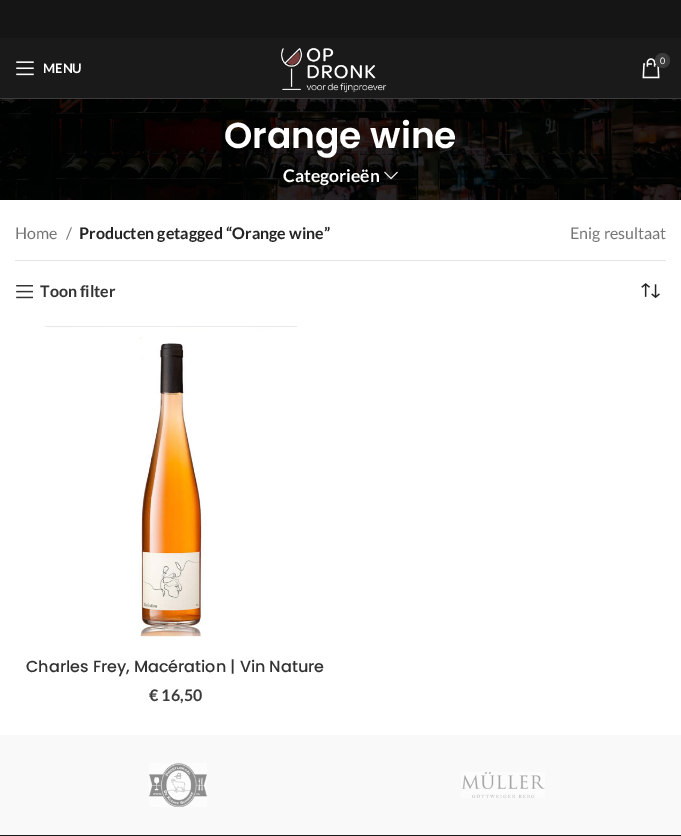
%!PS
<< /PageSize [681 836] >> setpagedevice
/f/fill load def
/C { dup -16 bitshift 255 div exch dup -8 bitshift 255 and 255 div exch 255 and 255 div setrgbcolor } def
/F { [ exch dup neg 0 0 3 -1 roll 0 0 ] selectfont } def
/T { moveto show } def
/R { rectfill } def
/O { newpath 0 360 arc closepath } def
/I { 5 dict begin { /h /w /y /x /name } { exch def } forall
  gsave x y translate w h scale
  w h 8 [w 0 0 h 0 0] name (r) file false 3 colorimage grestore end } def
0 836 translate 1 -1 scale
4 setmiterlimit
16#FFFFFF C
0 0 681 836 R
16#151515 C
0 0 681 38 R
16#1A1A1A C
0 38 681 60 R
16#3C3C3C C
0 98 681 1 R
(1.rgb) 281 47 106 46 I
(2.rgb) 642 58 18 21 I
16#3A3A3A C
662.5 60.5 7.5 O f
/Lato-Regular 9 F
16#FFFFFF C
(0) 660 64 T
(3.rgb) 16 61 18 15 I
/Lato-Bold 13 F
(MENU) 43 73 T
(4.rgb) 0 99 681 101 I
/Poppins-SemiBold 36 F
(Orange wine) 224 148 T
/Lato-Bold 17.5 F
(Categorieën) 283 182 T
(5.rgb) 384 171 14 9 I
16#E4E4E4 C
15 260 651 1 R
/Lato-Regular 16 F
16#767676 C
(Home) 15 239 T
(/) 66 239 T
/Lato-Bold 16 F
16#242424 C
(Producten getagged “Orange wine”) 79 239 T
/Lato-Regular 16 F
16#767676 C
(Enig resultaat) 570 239 T
(6.rgb) 16 285 17 14 I
/Lato-Bold 16 F
16#333333 C
(Toon filter) 40 297 T
(7.rgb) 641 283 19 16 I
(8.rgb) 45 326 252 312 I
/Poppins-Medium 16 F
(Charles Frey, Macération | Vin Nature) 26 672 T
/Lato-Bold 16 F
16#3A3A3A C
(€ 16,50) 149 701 T
16#F9F9F9 C
0 735 681 100 R
(9.rgb) 149 763 58 44 I
(10.rgb) 461 772 84 26 I
16#1A1A1A C
0 835 681 1 R
showpage
